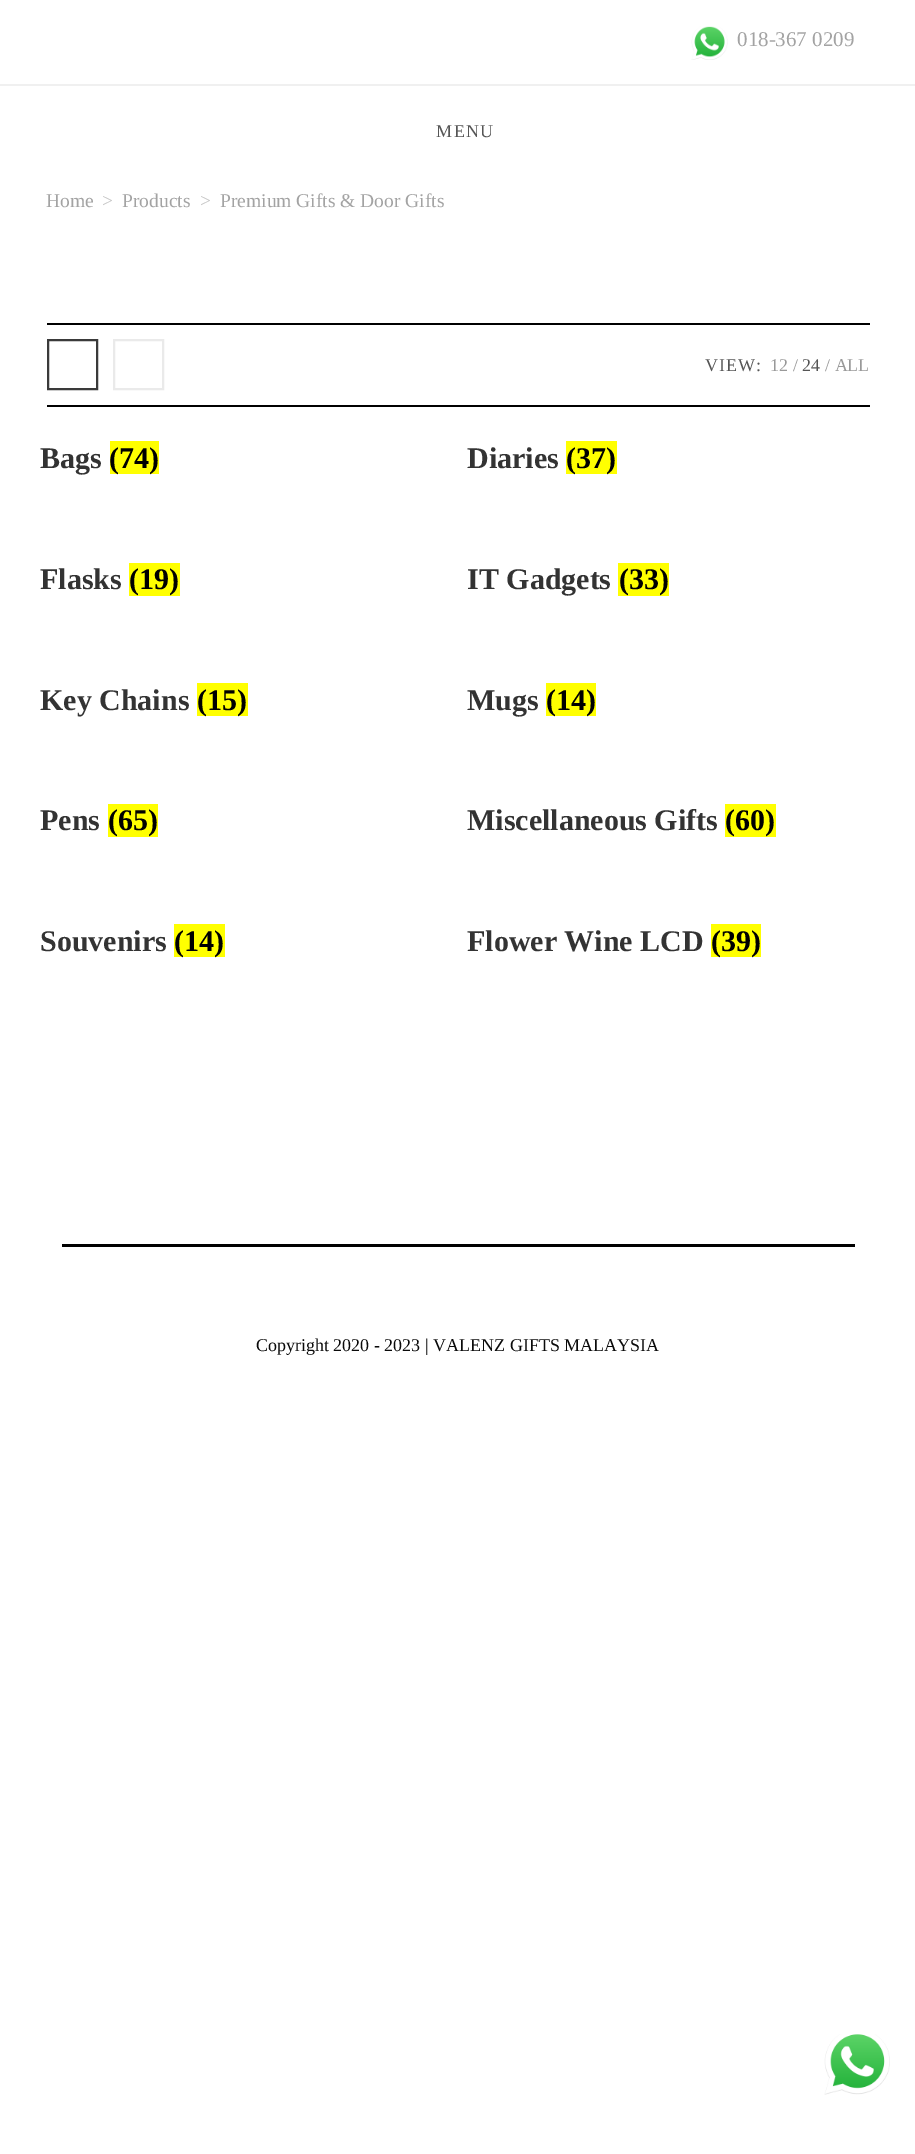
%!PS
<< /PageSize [915 2154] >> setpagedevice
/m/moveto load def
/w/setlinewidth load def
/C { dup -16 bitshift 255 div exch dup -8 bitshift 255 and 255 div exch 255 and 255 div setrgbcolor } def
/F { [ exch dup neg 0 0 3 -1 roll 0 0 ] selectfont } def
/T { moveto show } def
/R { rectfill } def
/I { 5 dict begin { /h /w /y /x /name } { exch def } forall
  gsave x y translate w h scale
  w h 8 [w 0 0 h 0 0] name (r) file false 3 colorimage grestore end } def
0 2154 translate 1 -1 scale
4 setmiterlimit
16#FFFFFF C
0 0 915 2154 R
16#F0F0F0 C
0 84 915 2 R
(1.rgb) 691 26 37 34 I
/LiberationSerif-Regular 21 F
16#A3A3A3 C
(018-367 0209) 737 46 T
/LiberationSerif-Regular 18 F
16#555555 C
436 137 m 1.5 0 (MENU) ashow
/LiberationSerif-Regular 19.5 F
16#A3A3A3 C
(Home) 46 207 T
16#C6C6C6 C
(>) 102 207 T
16#A3A3A3 C
(Products) 122 207 T
16#C6C6C6 C
(>) 200 207 T
16#A3A3A3 C
(Premium Gifts & Door Gifts) 220 207 T
16#000000 C
47 323 823 2 R
47 405 823 2 R
16#3A3A3A C
2 w
48 340 49 49 rectstroke
16#EAEAEA C
114 340 49 49 rectstroke
/LiberationSerif-Regular 18 F
16#555555 C
705 371 m 1 0 (VIEW:) ashow
16#999999 C
(12 /) 770 371 T
16#555555 C
(24) 802 371 T
16#999999 C
(/ ALL) 825 371 T
/LiberationSerif-Bold 30 F
16#333333 C
(Bags) 40 468 T
16#FFFF00 C
110 441 49 33 R
16#000000 C
(\(74\)) 109 468 T
16#333333 C
(Diaries) 467 468 T
16#FFFF00 C
566 441 51 33 R
16#000000 C
(\(37\)) 566 468 T
16#333333 C
(Flasks) 40 589 T
16#FFFF00 C
129 563 51 33 R
16#000000 C
(\(19\)) 129 589 T
16#333333 C
(IT Gadgets) 467 589 T
16#FFFF00 C
618 563 51 33 R
16#000000 C
(\(33\)) 619 589 T
16#333333 C
(Key Chains) 40 710 T
16#FFFF00 C
197 683 51 33 R
16#000000 C
(\(15\)) 197 710 T
16#333333 C
(Mugs) 467 710 T
16#FFFF00 C
546 683 50 33 R
16#000000 C
(\(14\)) 546 710 T
16#333333 C
(Pens) 40 830 T
16#FFFF00 C
108 804 50 33 R
16#000000 C
(\(65\)) 108 830 T
16#333333 C
(Miscellaneous Gifts) 467 830 T
16#FFFF00 C
725 804 51 33 R
16#000000 C
(\(60\)) 725 830 T
16#333333 C
(Souvenirs) 40 951 T
16#FFFF00 C
174 924 51 33 R
16#000000 C
(\(14\)) 174 951 T
16#333333 C
(Flower Wine LCD) 467 951 T
16#FFFF00 C
711 924 50 33 R
16#000000 C
(\(39\)) 711 951 T
62 1244 793 3 R
/LiberationSerif-Regular 18 F
16#0A0A0A C
(Copyright 2020 - 2023 | VALENZ GIFTS MALAYSIA) 256 1351 T
(2.rgb) 824 2034 66 61 I
showpage
